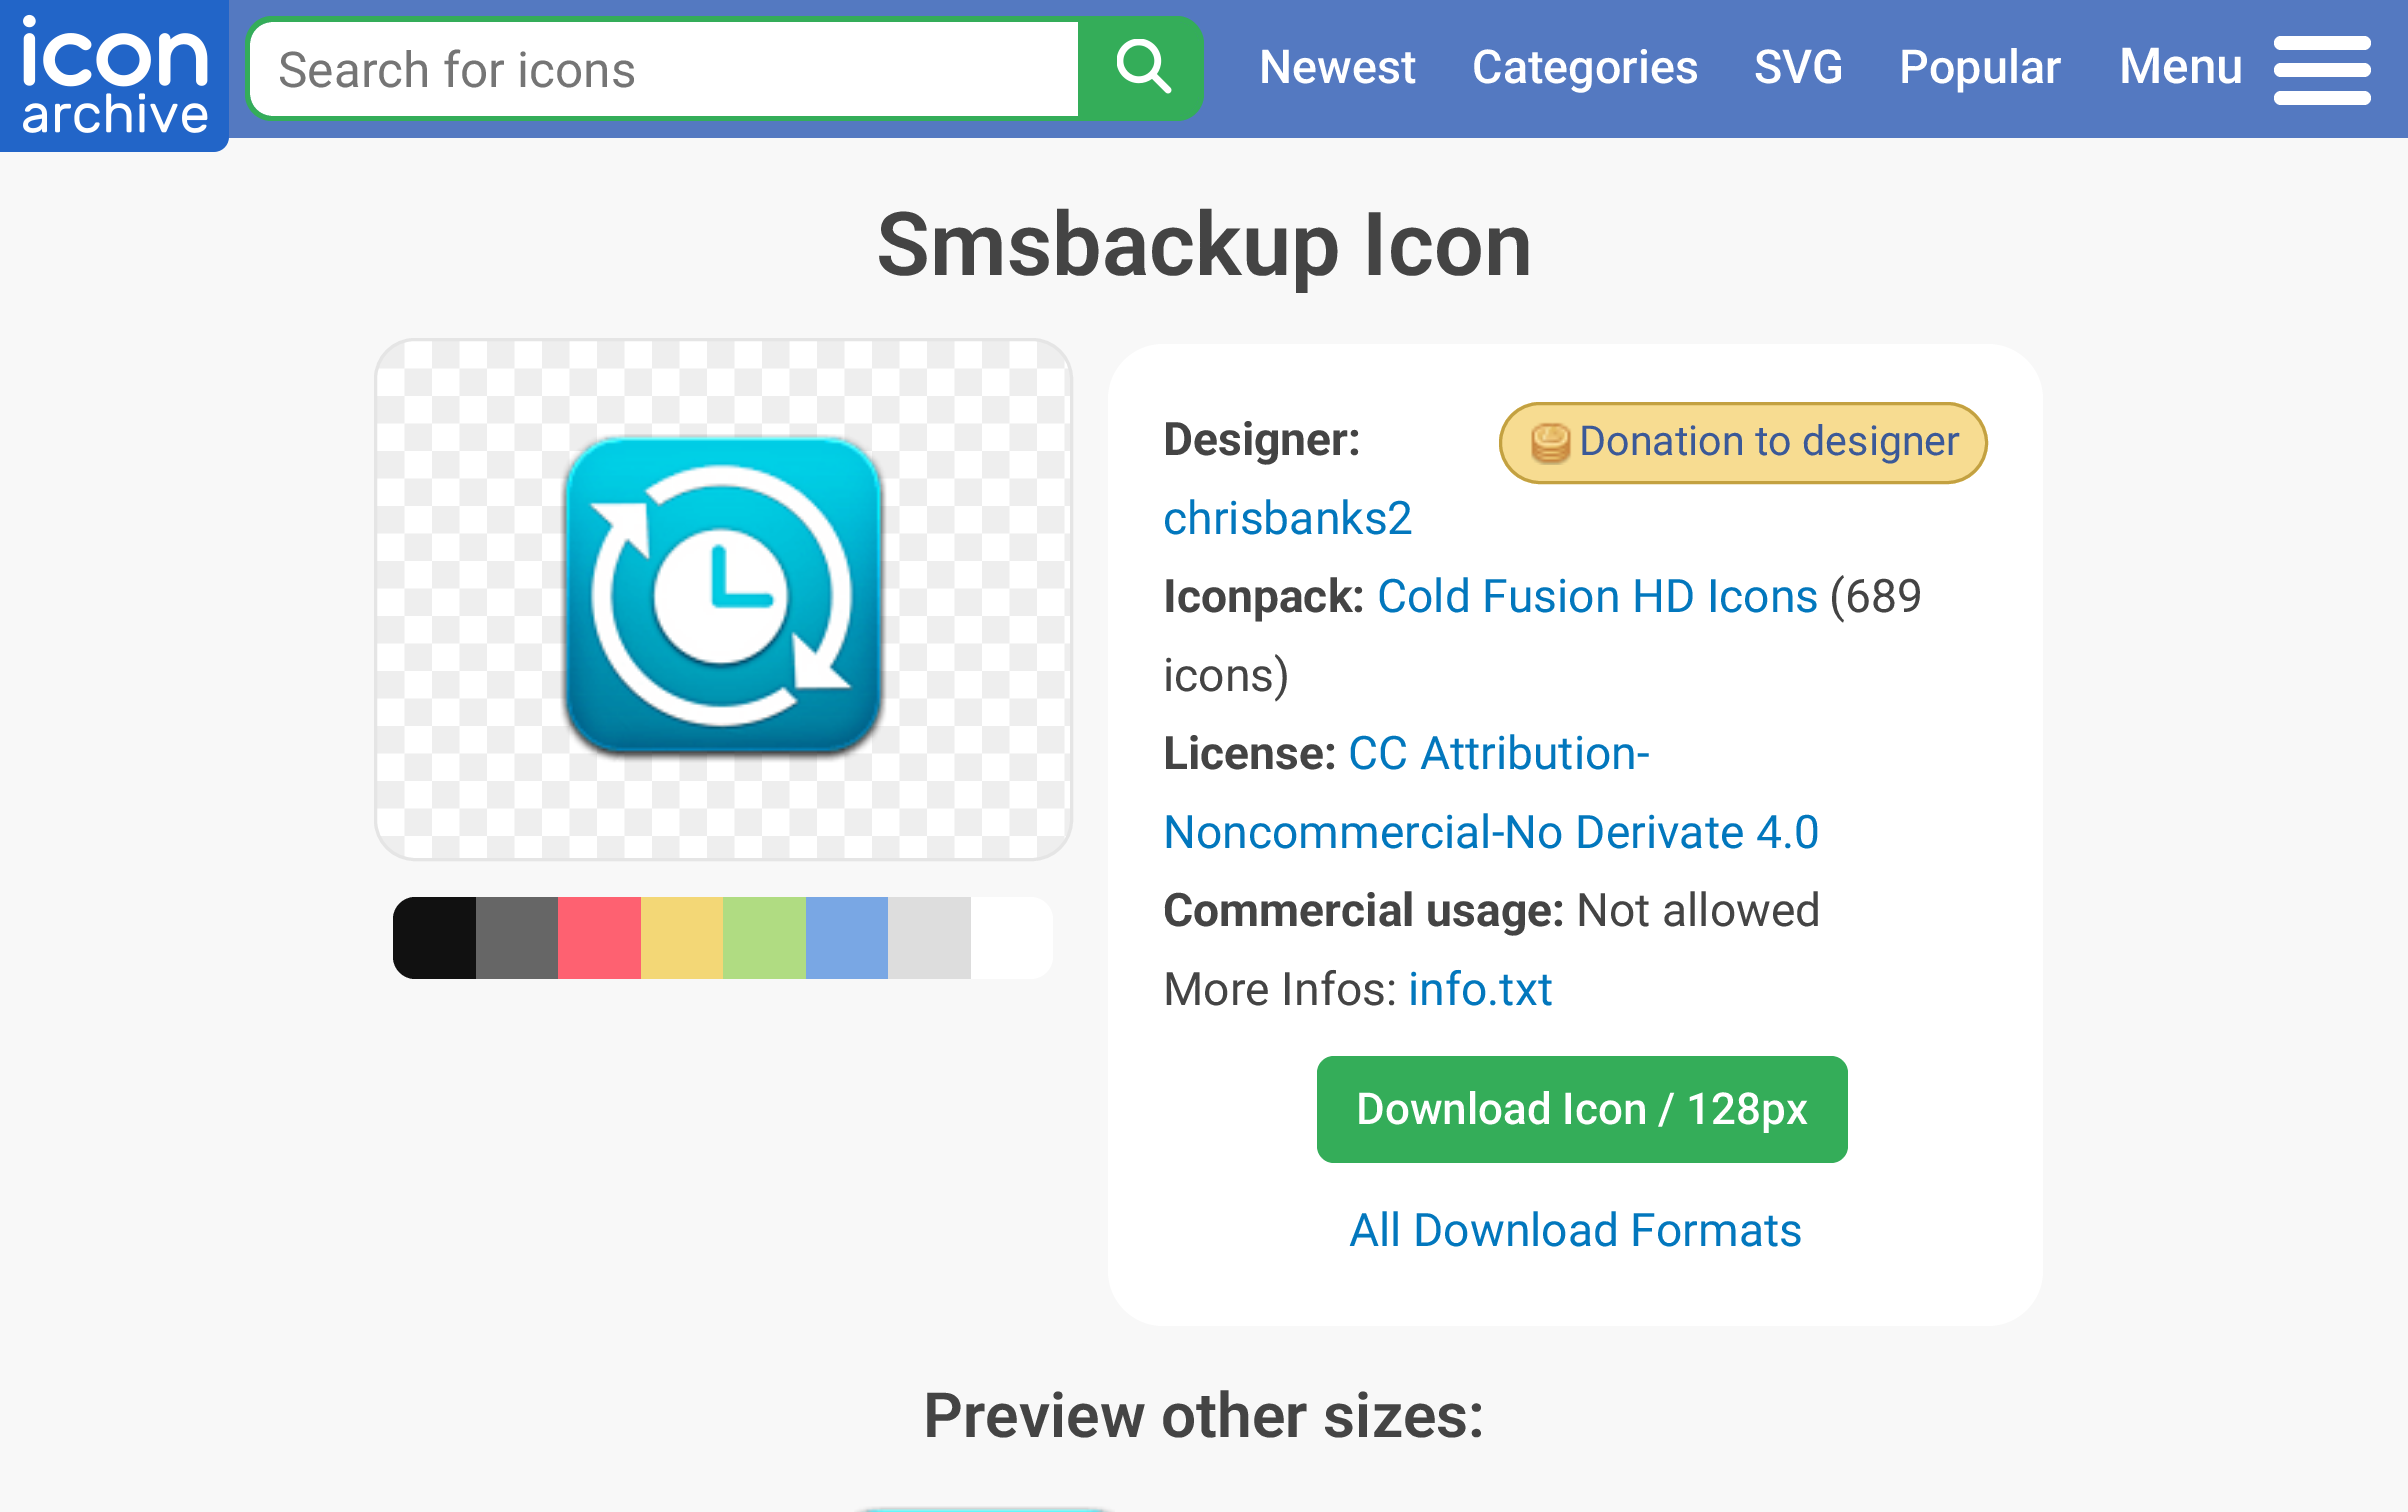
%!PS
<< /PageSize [2408 1512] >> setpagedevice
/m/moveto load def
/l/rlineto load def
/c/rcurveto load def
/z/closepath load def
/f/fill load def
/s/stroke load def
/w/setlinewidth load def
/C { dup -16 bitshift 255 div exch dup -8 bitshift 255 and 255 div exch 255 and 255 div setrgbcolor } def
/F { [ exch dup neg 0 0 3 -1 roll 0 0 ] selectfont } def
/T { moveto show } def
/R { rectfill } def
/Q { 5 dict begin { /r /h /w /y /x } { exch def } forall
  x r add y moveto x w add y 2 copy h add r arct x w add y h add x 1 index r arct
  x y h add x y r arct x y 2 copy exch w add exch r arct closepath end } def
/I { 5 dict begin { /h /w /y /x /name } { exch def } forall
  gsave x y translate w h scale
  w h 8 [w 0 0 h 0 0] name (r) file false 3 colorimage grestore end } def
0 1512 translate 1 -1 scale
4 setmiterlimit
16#F8F8F8 C
0 0 2408 1512 R
16#5479C1 C
228 0 2180 138 R
(1.rgb) 0 0 229 152 I
16#FFFFFF C
272 22 m 806 0 l 0 94 l -806 0 l -12 0 -22 -10 -22 -22 c 0 -50 l 0 -12 10 -22 22 -22 c z f
16#34AD59 C
272 16 m 806 0 l 0 105 l -806 0 l -15 0 -27 -12 -27 -27 c 0 -50 l 0 -15 12 -28 27 -28 c z 272 22 m 806 0 l 0 94 l -806 0 l -12 0 -22 -10 -22 -22 c 0 -50 l 0 -12 10 -22 22 -22 c z eofill
/Roboto-Regular 49.5 F
16#757575 C
(Search for icons) 278 87 T
16#34AD59 C
1078 22 m 99 0 l 12 0 22 10 22 22 c 0 50 l 0 12 -10 22 -22 22 c -99 0 l z f
1078 16 m 99 0 l 15 0 27 13 27 28 c 0 50 l 0 15 -12 27 -27 27 c -99 0 l z 1078 22 m 99 0 l 12 0 22 10 22 22 c 0 50 l 0 12 -10 22 -22 22 c -99 0 l z eofill
(2.rgb) 1117 39 55 55 I
/Roboto-Medium 46.75 F
16#FFFFFF C
(Newest) 1259 83 T
(Categories) 1472 83 T
(SVG) 1754 83 T
(Popular) 1899 83 T
/Roboto-Medium 49.5 F
(Menu) 2119 83 T
2274 36 97 14 7 Q f
2274 63 97 14 7 Q f
2274 91 97 14 7 Q f
/Roboto-SemiBold 88.25 F
16#444444 C
(Smsbackup Icon) 876 275 T
(3.rgb) 374 338 698 523 I
16#E5E5E5 C
3 w
375.5 339.5 696 520 39.5 Q s
(4.rgb) 560 434 327 329 I
16#111111 C
415 897 m 61 0 l 0 82 l -61 0 l -12 0 -22 -10 -22 -22 c 0 -38 l 0 -12 10 -22 22 -22 c z f
16#666666 C
476 897 82 82 R
16#FE6171 C
558 897 83 82 R
16#F3D776 C
641 897 82 82 R
16#B0DC82 C
723 897 83 82 R
16#79A7E4 C
806 897 82 82 R
16#DDDDDD C
888 897 83 82 R
16#FFFFFF C
971 897 m 60 0 l 12 0 22 10 22 22 c 0 38 l 0 12 -10 22 -22 22 c -60 0 l z f
1108 344 935 982 55 Q f
/Roboto-Bold 46.25 F
16#444444 C
(Designer:) 1163 455 T
16#F7DC91 C
1499 402 489 82 41 Q f
(5.rgb) 1531 422 41 43 I
16#C3A141 C
1500.5 403.5 486 79 39.5 Q s
/Roboto-Regular 41.25 F
16#3B5998 C
(Donation to designer) 1579 455 T
/Roboto-Regular 46.25 F
16#0277BD C
(chrisbanks2) 1163 534 T
/Roboto-Bold 46.25 F
16#444444 C
(Iconpack:) 1163 612 T
/Roboto-Regular 46.25 F
16#0277BD C
(Cold Fusion HD Icons) 1377 612 T
16#444444 C
(\(689) 1829 612 T
(icons\)) 1163 691 T
/Roboto-Bold 46.25 F
(License:) 1163 769 T
/Roboto-Regular 46.25 F
16#0277BD C
(CC Attribution-) 1348 769 T
(Noncommercial-No Derivate 4.0) 1163 848 T
/Roboto-Bold 46.25 F
16#444444 C
(Commercial usage:) 1163 926 T
/Roboto-Regular 46.25 F
(Not allowed) 1576 926 T
(More Infos:) 1163 1005 T
16#0277BD C
(info.txt) 1408 1005 T
16#34AD59 C
1317 1056 531 107 17 Q f
/Roboto-Medium 44 F
16#FFFFFF C
(Download Icon / 128px) 1356 1124 T
/Roboto-Regular 46.25 F
16#0277BD C
(All Download Formats) 1349 1246 T
/Roboto-SemiBold 62.25 F
16#444444 C
(Preview other sizes:) 923 1437 T
(6.rgb) 854 1506 261 6 I
showpage
